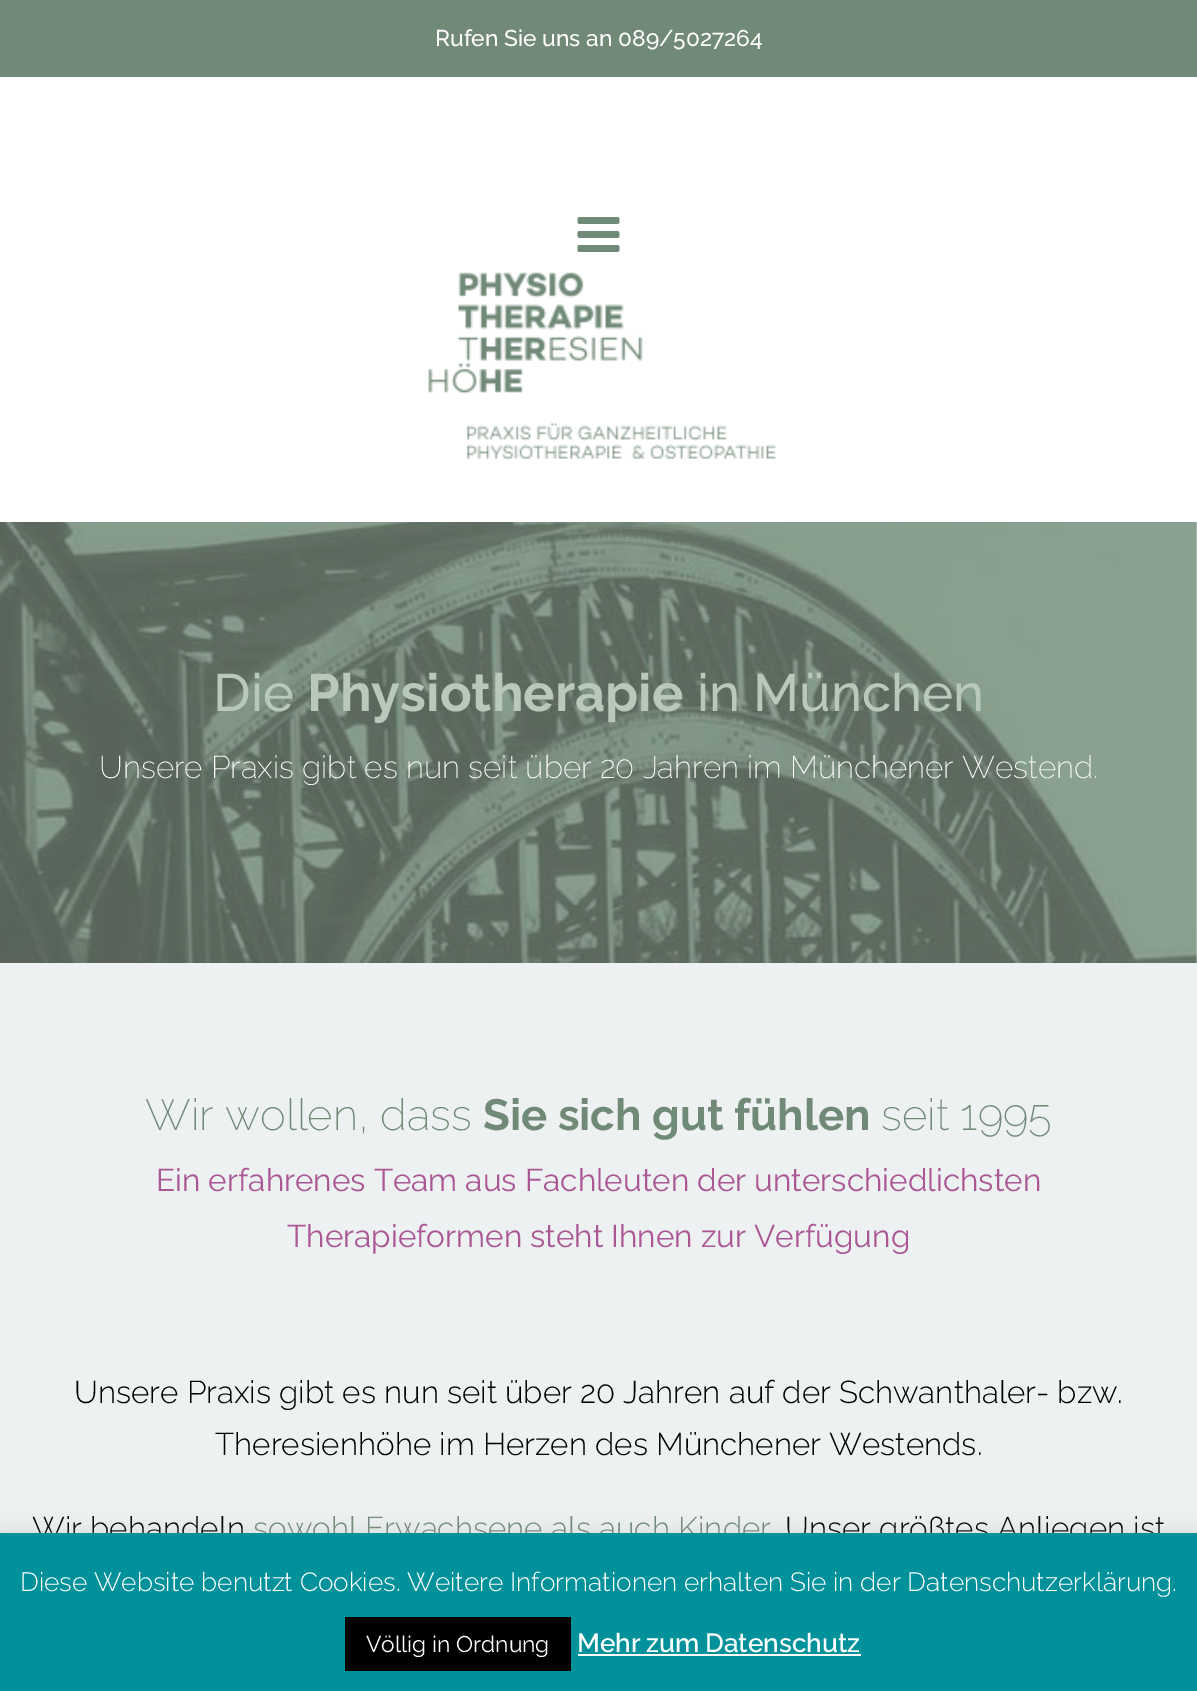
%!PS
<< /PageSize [1197 1691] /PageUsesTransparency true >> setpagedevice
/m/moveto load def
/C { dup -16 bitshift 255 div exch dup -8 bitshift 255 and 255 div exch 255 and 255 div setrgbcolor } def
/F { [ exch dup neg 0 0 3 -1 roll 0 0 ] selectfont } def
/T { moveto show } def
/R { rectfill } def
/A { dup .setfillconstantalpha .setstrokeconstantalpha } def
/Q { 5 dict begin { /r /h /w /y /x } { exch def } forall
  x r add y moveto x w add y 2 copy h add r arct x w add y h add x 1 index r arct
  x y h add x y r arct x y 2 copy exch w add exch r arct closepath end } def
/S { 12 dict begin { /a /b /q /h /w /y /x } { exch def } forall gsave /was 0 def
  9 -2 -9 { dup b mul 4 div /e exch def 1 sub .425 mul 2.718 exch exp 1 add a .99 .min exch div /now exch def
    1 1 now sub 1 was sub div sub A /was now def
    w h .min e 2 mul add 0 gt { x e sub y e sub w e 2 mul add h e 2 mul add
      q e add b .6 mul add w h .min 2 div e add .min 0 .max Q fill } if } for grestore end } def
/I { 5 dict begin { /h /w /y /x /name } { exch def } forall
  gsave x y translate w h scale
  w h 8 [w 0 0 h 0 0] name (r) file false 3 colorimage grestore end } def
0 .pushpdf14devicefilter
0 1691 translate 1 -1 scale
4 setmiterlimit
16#E5ECE5 C
0 0 1197 1691 R
16#718A78 C
0 0 1197 77 R
/Raleway-Medium 22.75 F
16#FFFFFF C
(Rufen Sie uns an 089/5027264) 435 46 T
0 77 1197 445 R
(1.rgb) 577 217 43 35 I
(2.rgb) 428 272 348 188 I
(3.rgb) 0 522 1197 441 I
/Raleway-Medium 52.5 F
16#B8C8BA C
(Die) 213 711 T
/Raleway-Bold 52.5 F
(Physiotherapie) 307 711 T
/Raleway-Medium 52.5 F
(in München) 697 711 T
/Raleway-ExtraLight 31.5 F
16#FFFFFF C
(Unsere Praxis gibt es nun seit über 20 Jahren im Münchener Westend.) 99 778 T
16#EDF1F2 C
0 963 1197 570 R
/Raleway-ExtraLight 43.75 F
16#718A78 C
(Wir wollen, dass) 145 1130 T
/Raleway-Bold 43.75 F
(Sie sich gut fühlen) 483 1130 T
/Raleway-ExtraLight 43.75 F
(seit 1995) 881 1130 T
/Raleway-Regular 31.5 F
16#AB5796 C
(Ein erfahrenes Team aus Fachleuten der unterschiedlichsten) 156 1191 T
(Therapieformen steht Ihnen zur Verfügung) 287 1247 T
/Raleway-Light 31.5 F
16#000000 C
(Unsere Praxis gibt es nun seit über 20 Jahren auf der Schwanthaler- bzw.) 74 1403 T
(Theresienhöhe im Herzen des Münchener Westends.) 215 1455 T
(Wir behandeln) 32 1539 T
16#718A78 C
(sowohl Erwachsene als auch Kinder) 253 1539 T
16#000000 C
(Unser größtes Anliegen ist) 785 1539 T
16#ACABAB C
0 1531 1197 160 0 9 .3 S
16#00919B C
0 1533 1197 158 R
/Raleway-Light 26.25 F
16#FFFFFF C
(Diese Website benutzt Cookies. Weitere Informationen erhalten Sie in der Datenschutzerklärung.) 20 1591 T
16#000000 C
345 1617 226 54 R
/Raleway-Regular 22.75 F
16#FFFFFF C
(Völlig in Ordnung) 366 1652 T
/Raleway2-Medium 26.25 F
577 1652 m -1 0 32 (Mehr zum Datenschutz) widthshow
578 1654 283 2 R
.poppdf14devicefilter showpage
